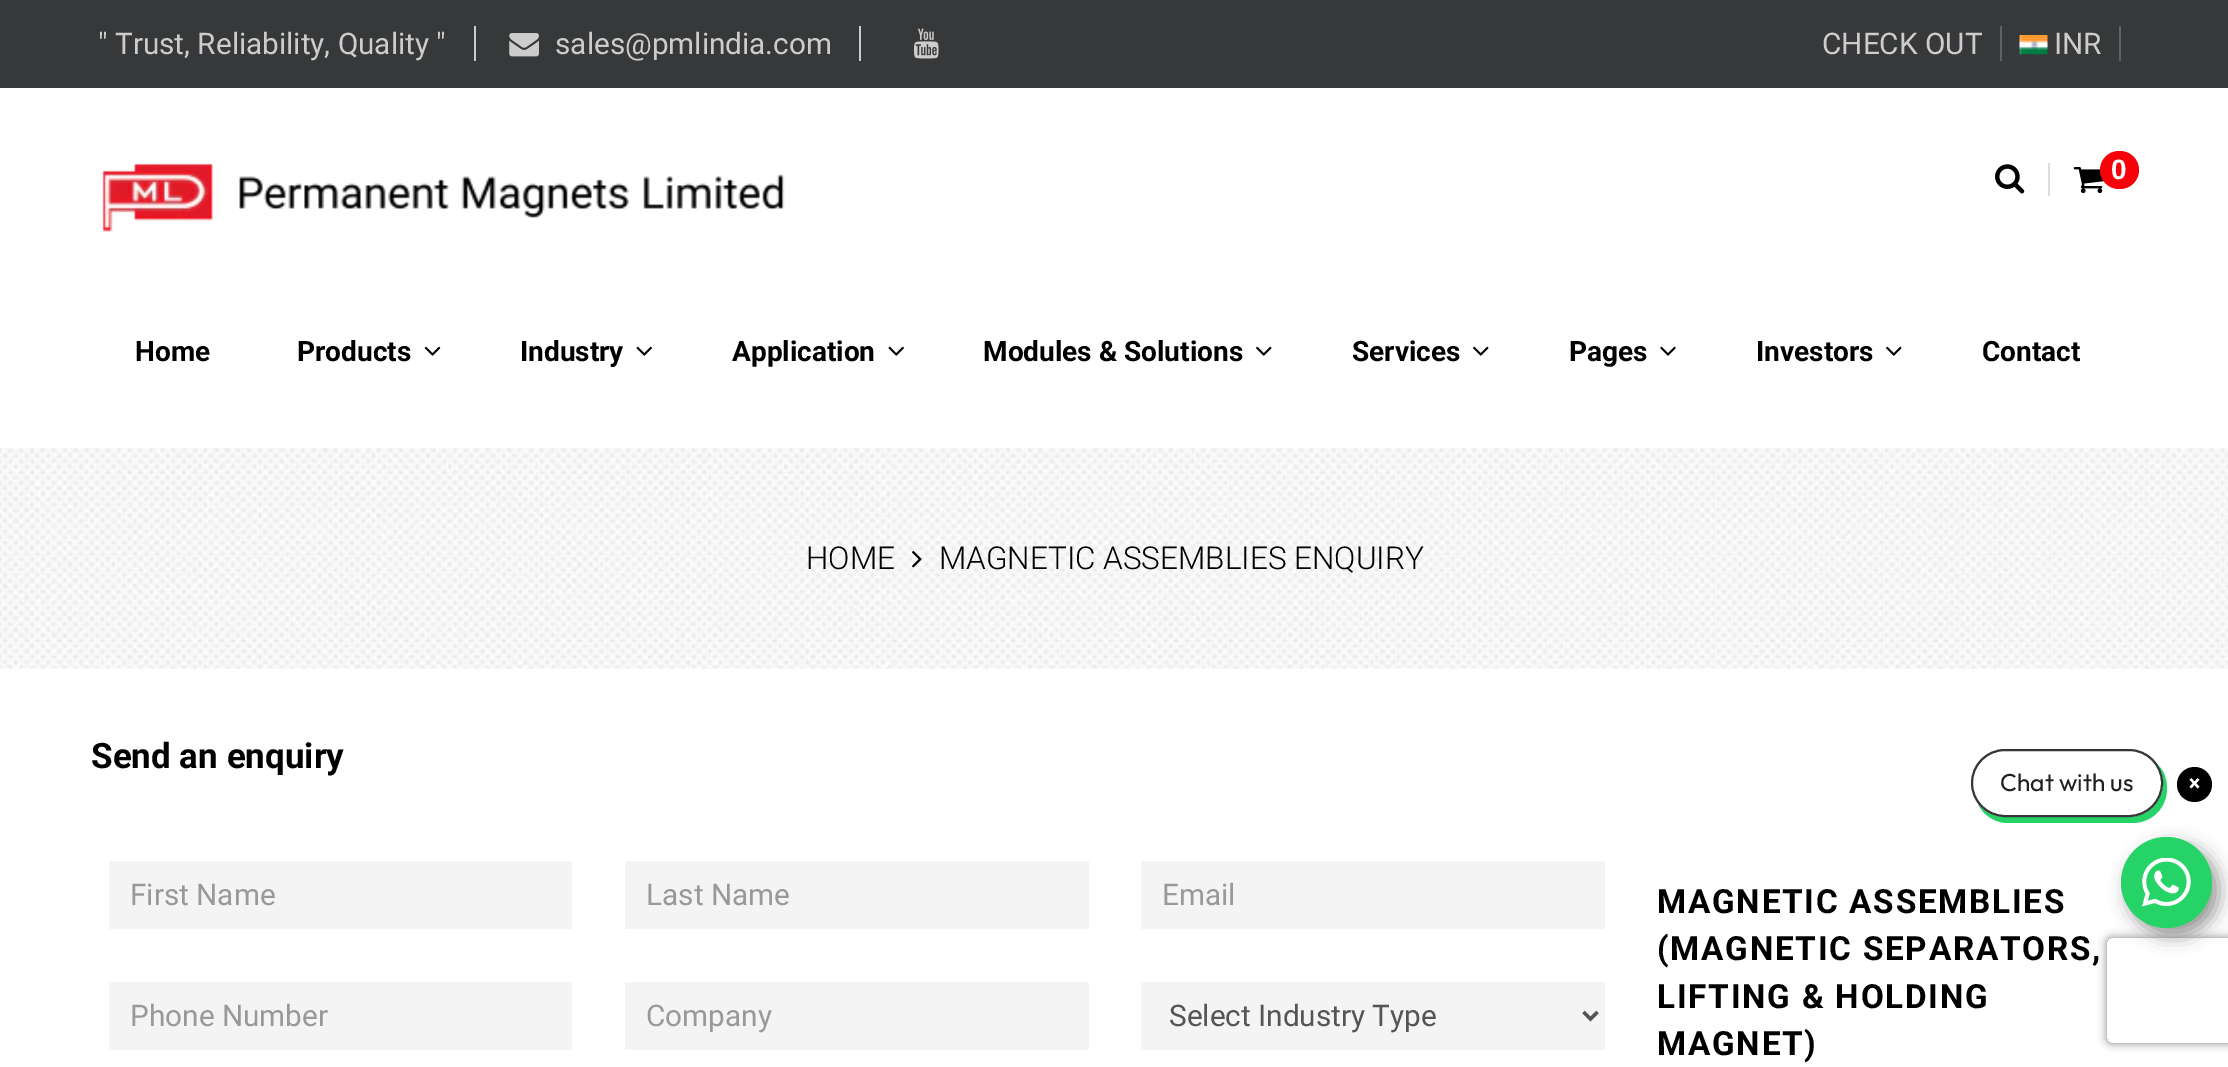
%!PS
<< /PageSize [2228 1067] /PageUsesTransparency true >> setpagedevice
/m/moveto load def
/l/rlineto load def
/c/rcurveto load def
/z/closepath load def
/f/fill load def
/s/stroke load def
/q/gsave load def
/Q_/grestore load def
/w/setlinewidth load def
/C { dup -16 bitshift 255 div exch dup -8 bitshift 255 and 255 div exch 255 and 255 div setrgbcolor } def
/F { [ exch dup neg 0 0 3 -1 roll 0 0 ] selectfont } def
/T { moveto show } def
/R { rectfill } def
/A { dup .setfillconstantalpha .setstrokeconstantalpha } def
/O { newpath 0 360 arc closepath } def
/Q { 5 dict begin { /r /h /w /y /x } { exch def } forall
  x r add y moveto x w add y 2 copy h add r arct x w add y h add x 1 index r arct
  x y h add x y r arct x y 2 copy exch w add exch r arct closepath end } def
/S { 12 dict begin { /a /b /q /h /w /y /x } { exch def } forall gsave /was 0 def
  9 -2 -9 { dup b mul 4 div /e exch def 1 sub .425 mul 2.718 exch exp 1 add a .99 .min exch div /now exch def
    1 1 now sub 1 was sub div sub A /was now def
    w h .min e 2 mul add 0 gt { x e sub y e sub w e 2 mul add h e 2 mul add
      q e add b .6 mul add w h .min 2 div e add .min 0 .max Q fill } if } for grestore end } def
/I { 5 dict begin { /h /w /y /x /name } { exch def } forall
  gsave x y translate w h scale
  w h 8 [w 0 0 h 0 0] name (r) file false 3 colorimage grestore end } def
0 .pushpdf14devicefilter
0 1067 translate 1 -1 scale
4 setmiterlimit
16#FFFFFF C
0 0 2228 1067 R
16#373839 C
0 0 2228 88 R
/Roboto-Regular 29.75 F
16#CCCCCC C
(" Trust, Reliability, Quality ") 98 54 T
474 26 2 35 R
(1.rgb) 509 33 30 24 I
(sales@pmlindia.com) 555 54 T
859 26 2 35 R
(2.rgb) 913 28 26 31 I
(CHECK OUT) 1822 54 T
16#616161 C
2000 26 2 35 R
(3.rgb) 2019 35 29 20 I
16#CCCCCC C
(INR) 2054 54 T
16#616161 C
2119 26 2 35 R
(4.rgb) 102 163 683 69 I
16#DDDDDD C
2048 163 2 33 R
(5.rgb) 1995 164 30 30 I
(6.rgb) 2073 167 31 27 I
16#F50309 C
2100 151 39 38 19 Q f
/LiberationSans-Bold 28 F
16#FFFFFF C
(0) 2111 179 T
/Roboto-Bold 28 F
16#000000 C
(Home) 135 361 T
(Products) 297 361 T
(7.rgb) 424 346 17 10 I
(Industry) 520 361 T
(8.rgb) 636 346 16 10 I
(Application) 732 361 T
(8.rgb) 888 346 16 10 I
(Modules & Solutions) 983 361 T
(9.rgb) 1256 346 16 10 I
(Services) 1352 361 T
(9.rgb) 1473 346 16 10 I
(Pages) 1569 361 T
(10.rgb) 1660 346 16 10 I
(Investors) 1756 361 T
(9.rgb) 1886 346 16 10 I
(Contact) 1982 361 T
(11.rgb) 0 448 2228 221 I
/Roboto-Light 31.5 F
(HOME) 806 569 T
(12.rgb) 912 551 10 17 I
(MAGNETIC ASSEMBLIES ENQUIRY) 939 569 T
/Roboto-Bold 35 F
(Send an enquiry) 91 768 T
16#F4F4F4 C
109 861 463 68 R
/Roboto-Regular 29.75 F
16#999999 C
(First Name) 130 905 T
16#F4F4F4 C
625 861 464 68 R
16#999999 C
(Last Name) 646 905 T
16#F4F4F4 C
1141 861 464 68 R
16#999999 C
(Email) 1162 905 T
16#F4F4F4 C
109 982 463 68 R
16#999999 C
(Phone Number) 130 1026 T
16#F4F4F4 C
625 982 464 68 R
16#999999 C
(Company) 646 1026 T
16#F4F4F4 C
1141 982 464 68 R
16#555555 C
3.5 w
1583.5 1012 m 7 7 l 7 -7 l s
(Select Industry Type) 1169 1026 T
/Roboto-Bold 33.25 F
16#000000 C
1657 913 m 1.75 0 (MAGNETIC ASSEMBLIES) ashow
1657 960 m 1.75 0 (\(MAGNETIC SEPARATORS,) ashow
1657 1008 m 1.75 0 (LIFTING & HOLDING) ashow
1657 1055 m 1.75 0 (MAGNET\)) ashow
2128 845 91 91 45.5 9 .4 S
16#25D366 C
1978 804 m 5 11 17 19 30 19 c 124 0 l 20 0 35 -15 35 -35 c 0 -9 -3 -17 -9 -23 c 3 5 5 12 5 18 c 0 19 -15 34 -34 34 c -124 0 l -11 0 -21 -5 -27 -13 c z f
16#FFFFFF C
1972 750 190 66 33 Q q f Q_
16#363636 C
2 w
s
/Outfit-Regular 24.5 F
16#202020 C
(Chat with us) 2000 791 T
16#000000 C
2194.5 784.5 17.5 O f
16#FFFFFF C
2.3 w
2190.5 779 m 8 8.5 l 2190.5 787.5 m 8 -8.5 l s
q
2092 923 m 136 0 l 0 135 l -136 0 l z 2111 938 m 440 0 l 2 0 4 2 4 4 c 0 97 l 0 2 -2 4 -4 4 c -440 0 l -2 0 -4 -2 -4 -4 c 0 -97 l 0 -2 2 -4 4 -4 c z eoclip newpath
16#808080 C
2107 938 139 105 4 4.5 1 S
Q_
16#25D366 C
2166.5 882.5 45.5 O f
(13.rgb) 2142 858 49 49 I
.poppdf14devicefilter showpage
